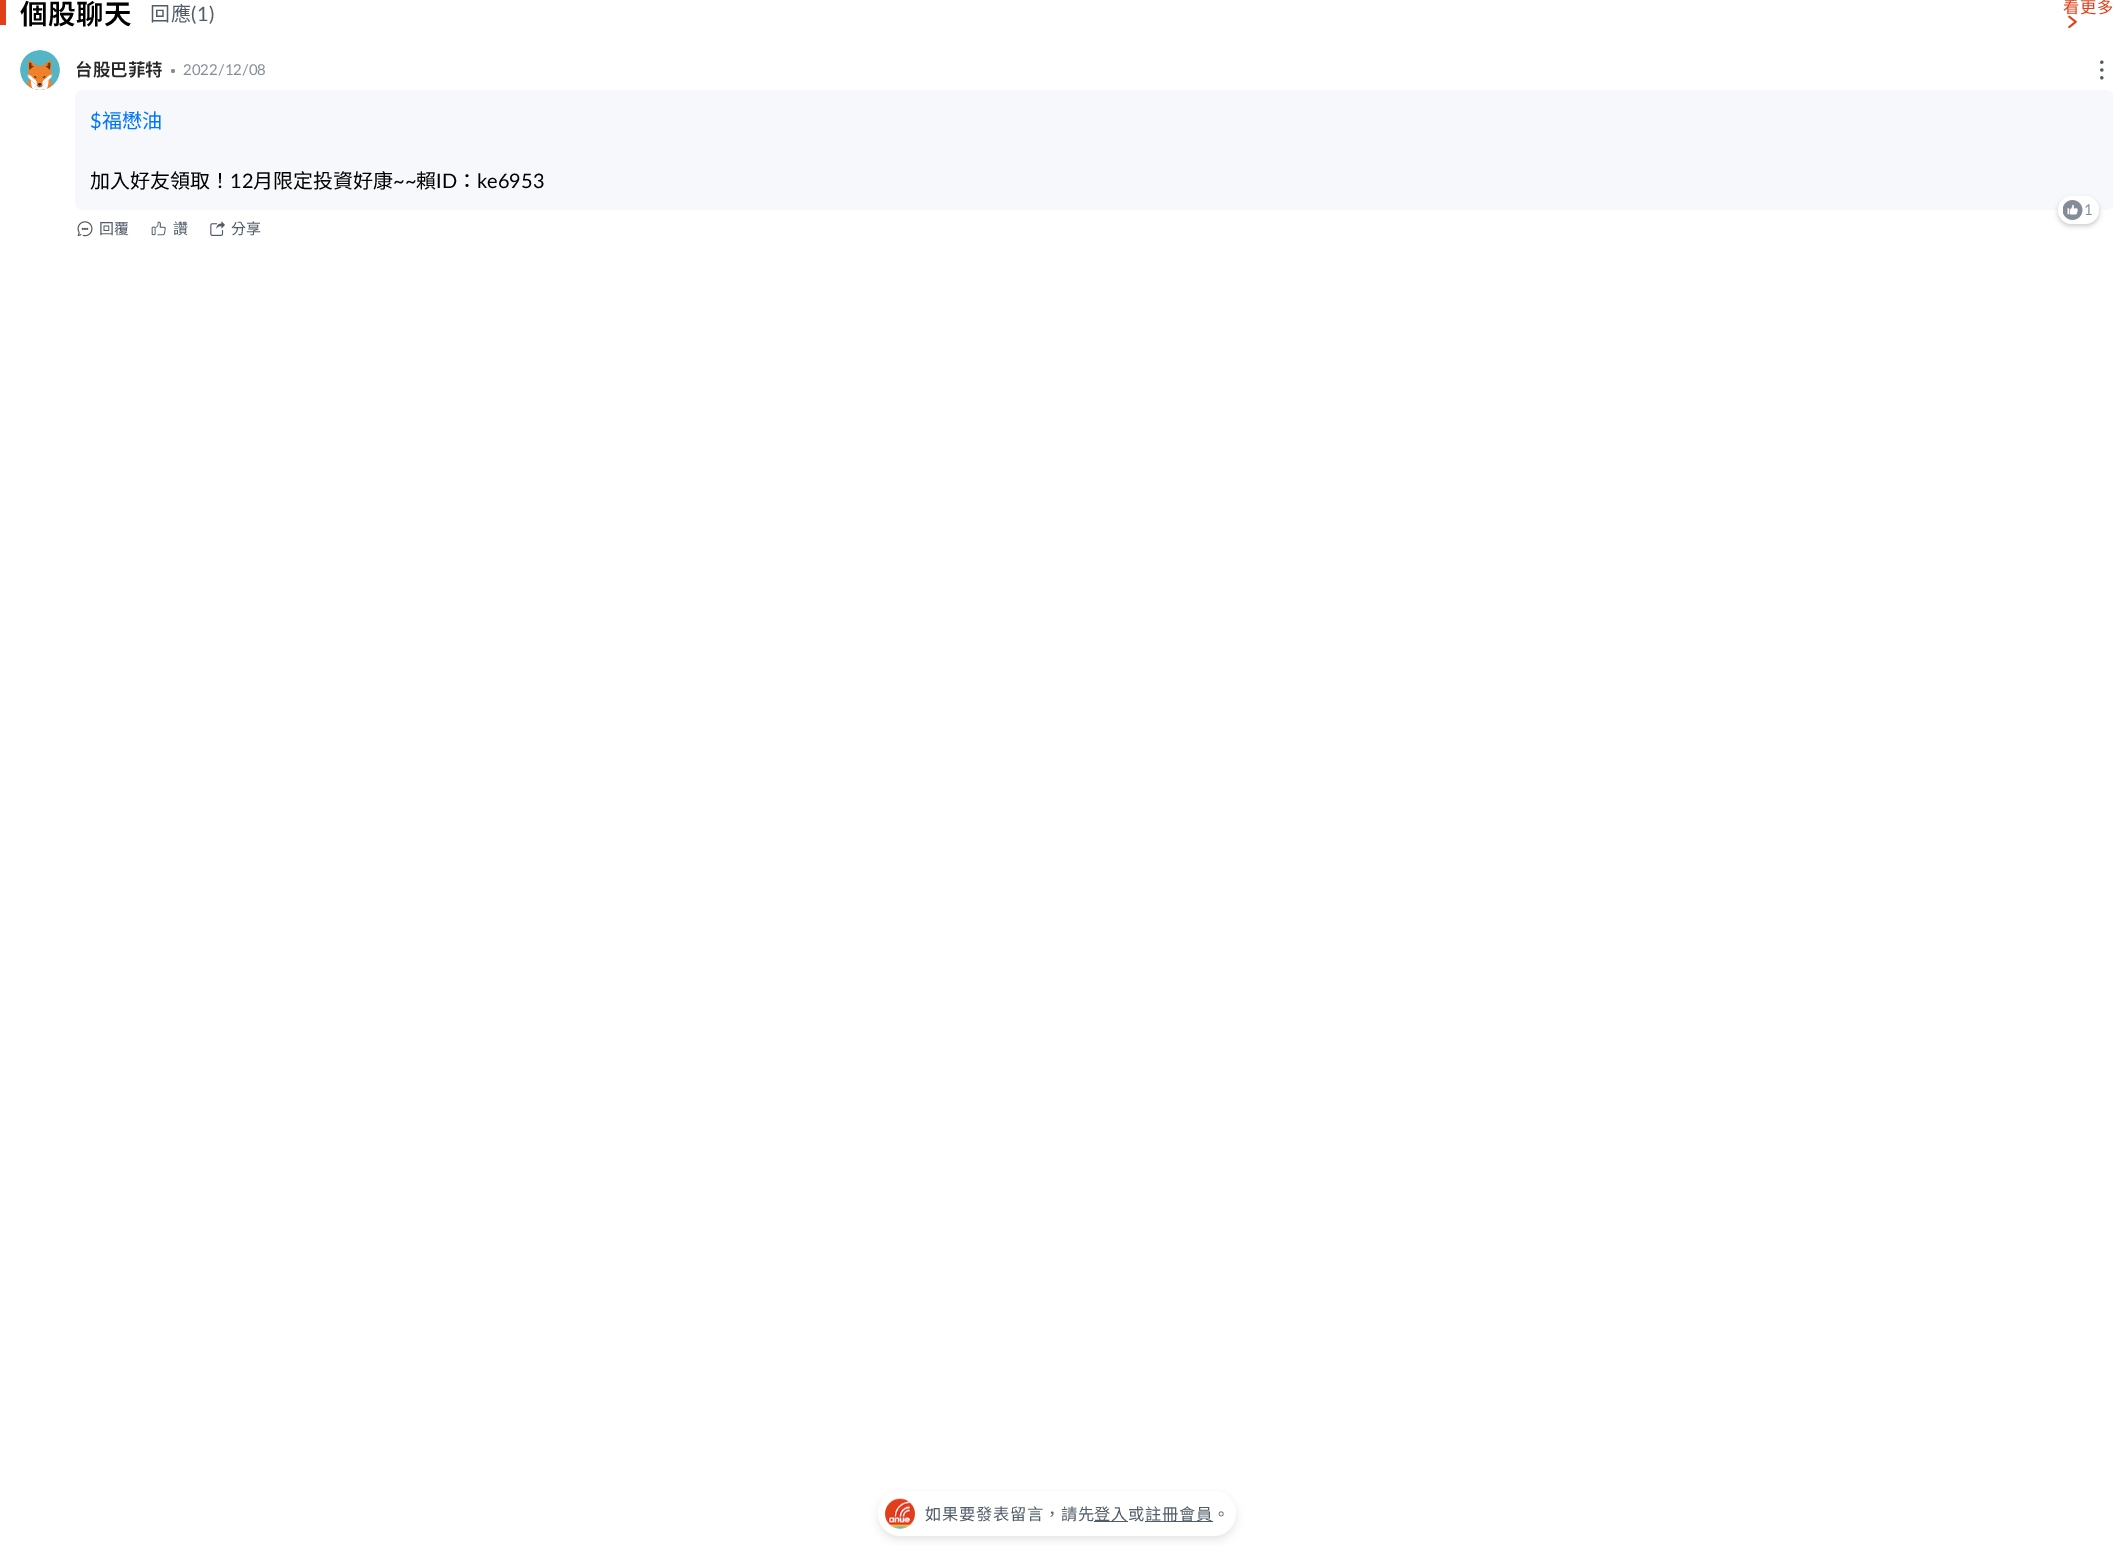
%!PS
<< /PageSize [2113 1546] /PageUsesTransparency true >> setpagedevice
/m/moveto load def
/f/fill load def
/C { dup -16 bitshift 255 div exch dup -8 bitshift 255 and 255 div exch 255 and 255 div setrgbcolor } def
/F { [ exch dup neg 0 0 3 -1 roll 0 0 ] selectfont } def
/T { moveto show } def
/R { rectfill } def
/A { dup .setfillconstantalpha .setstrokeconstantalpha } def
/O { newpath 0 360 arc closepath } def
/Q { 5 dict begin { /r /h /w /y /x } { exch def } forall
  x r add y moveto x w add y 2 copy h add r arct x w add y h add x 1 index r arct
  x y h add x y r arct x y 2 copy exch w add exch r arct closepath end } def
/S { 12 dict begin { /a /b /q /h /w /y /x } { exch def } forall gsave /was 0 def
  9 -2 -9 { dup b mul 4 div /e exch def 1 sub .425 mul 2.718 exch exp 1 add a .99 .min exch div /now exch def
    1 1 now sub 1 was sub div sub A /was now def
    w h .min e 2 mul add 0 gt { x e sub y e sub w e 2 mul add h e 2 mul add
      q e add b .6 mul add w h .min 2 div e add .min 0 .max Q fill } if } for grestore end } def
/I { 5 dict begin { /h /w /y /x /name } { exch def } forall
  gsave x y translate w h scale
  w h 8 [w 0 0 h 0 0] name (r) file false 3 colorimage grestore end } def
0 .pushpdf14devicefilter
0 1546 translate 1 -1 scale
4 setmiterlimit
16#FFFFFF C
0 0 2113 1546 R
16#E03F19 C
0 0 6 25 R
/NotoSansTC-SemiBold 27.5 F
16#000000 C
20 24 m .5 0 (個股聊天) ashow
/NotoSansTC-Regular 20 F
16#515C69 C
150 21 m .5 0 (回應) ashow
/Lato-Regular 20 F
191 21 m .5 0 (\(1\)) ashow
/NotoSansTC-Regular 16.25 F
16#E03F19 C
2063 13 m .5 0 (看更多) ashow
(1.rgb) 2068 15 9 14 I
(2.rgb) 20 50 40 40 I
/NotoSansTC-SemiBold 17.5 F
16#282828 C
(台股巴菲特) 75 76 T
16#848D97 C
173 71 2 O f
/Lato-Regular 15 F
(2022/12/08) 183 75 T
16#515C69 C
2101.8 62.2 1.6 O f
2101.8 70 1.6 O f
2101.8 77.8 1.6 O f
16#F6F8FC C
75 90 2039 120 8 Q f
/Lato-Regular 20 F
16#0073FF C
($) 90 128 T
/NotoSansTC-Regular 20 F
(福懋油) 102 128 T
16#000000 C
(加入好友領取！) 90 188 T
/Lato-Regular 20 F
(12) 230 188 T
/NotoSansTC-Regular 20 F
(月限定投資好康) 253 188 T
/Lato-Regular 20 F
(~~) 393 188 T
/NotoSansTC-Regular 20 F
(賴) 416 188 T
/Lato-Regular 20 F
(ID) 436 188 T
/NotoSansTC-Regular 20 F
(：) 457 188 T
/Lato-Regular 20 F
(ke6953) 477 188 T
16#545454 C
2058 199 41 27 13.5 2.5 .3 S
16#FFFFFF C
2058 196 41 28 14 Q f
(3.rgb) 2063 200 20 20 I
/Lato-Regular 15 F
16#848D97 C
2084 215 m .5 0 (1) ashow
(4.rgb) 77 221 16 16 I
/NotoSansTC-Regular 15 F
16#515C69 C
(回覆) 99 234 T
(5.rgb) 151 221 15 15 I
(讚) 173 234 T
(6.rgb) 210 221 15 15 I
(分享) 231 234 T
16#1C1E2F C
878 1495 358 45 22.5 4 .11 S
16#FFFFFF C
878 1491 358 45 22.5 Q f
(7.rgb) 885 1498 30 31 I
/NotoSansTC-Regular 16.25 F
16#515C69 C
925 1520 m .75 0 (如果要發表留言，請先) ashow
1094 1521 34 1 R
1094 1520 m .75 0 (登入或) ashow
1145 1521 68 1 R
1145 1520 m .75 0 (註冊會員。) ashow
.poppdf14devicefilter showpage
